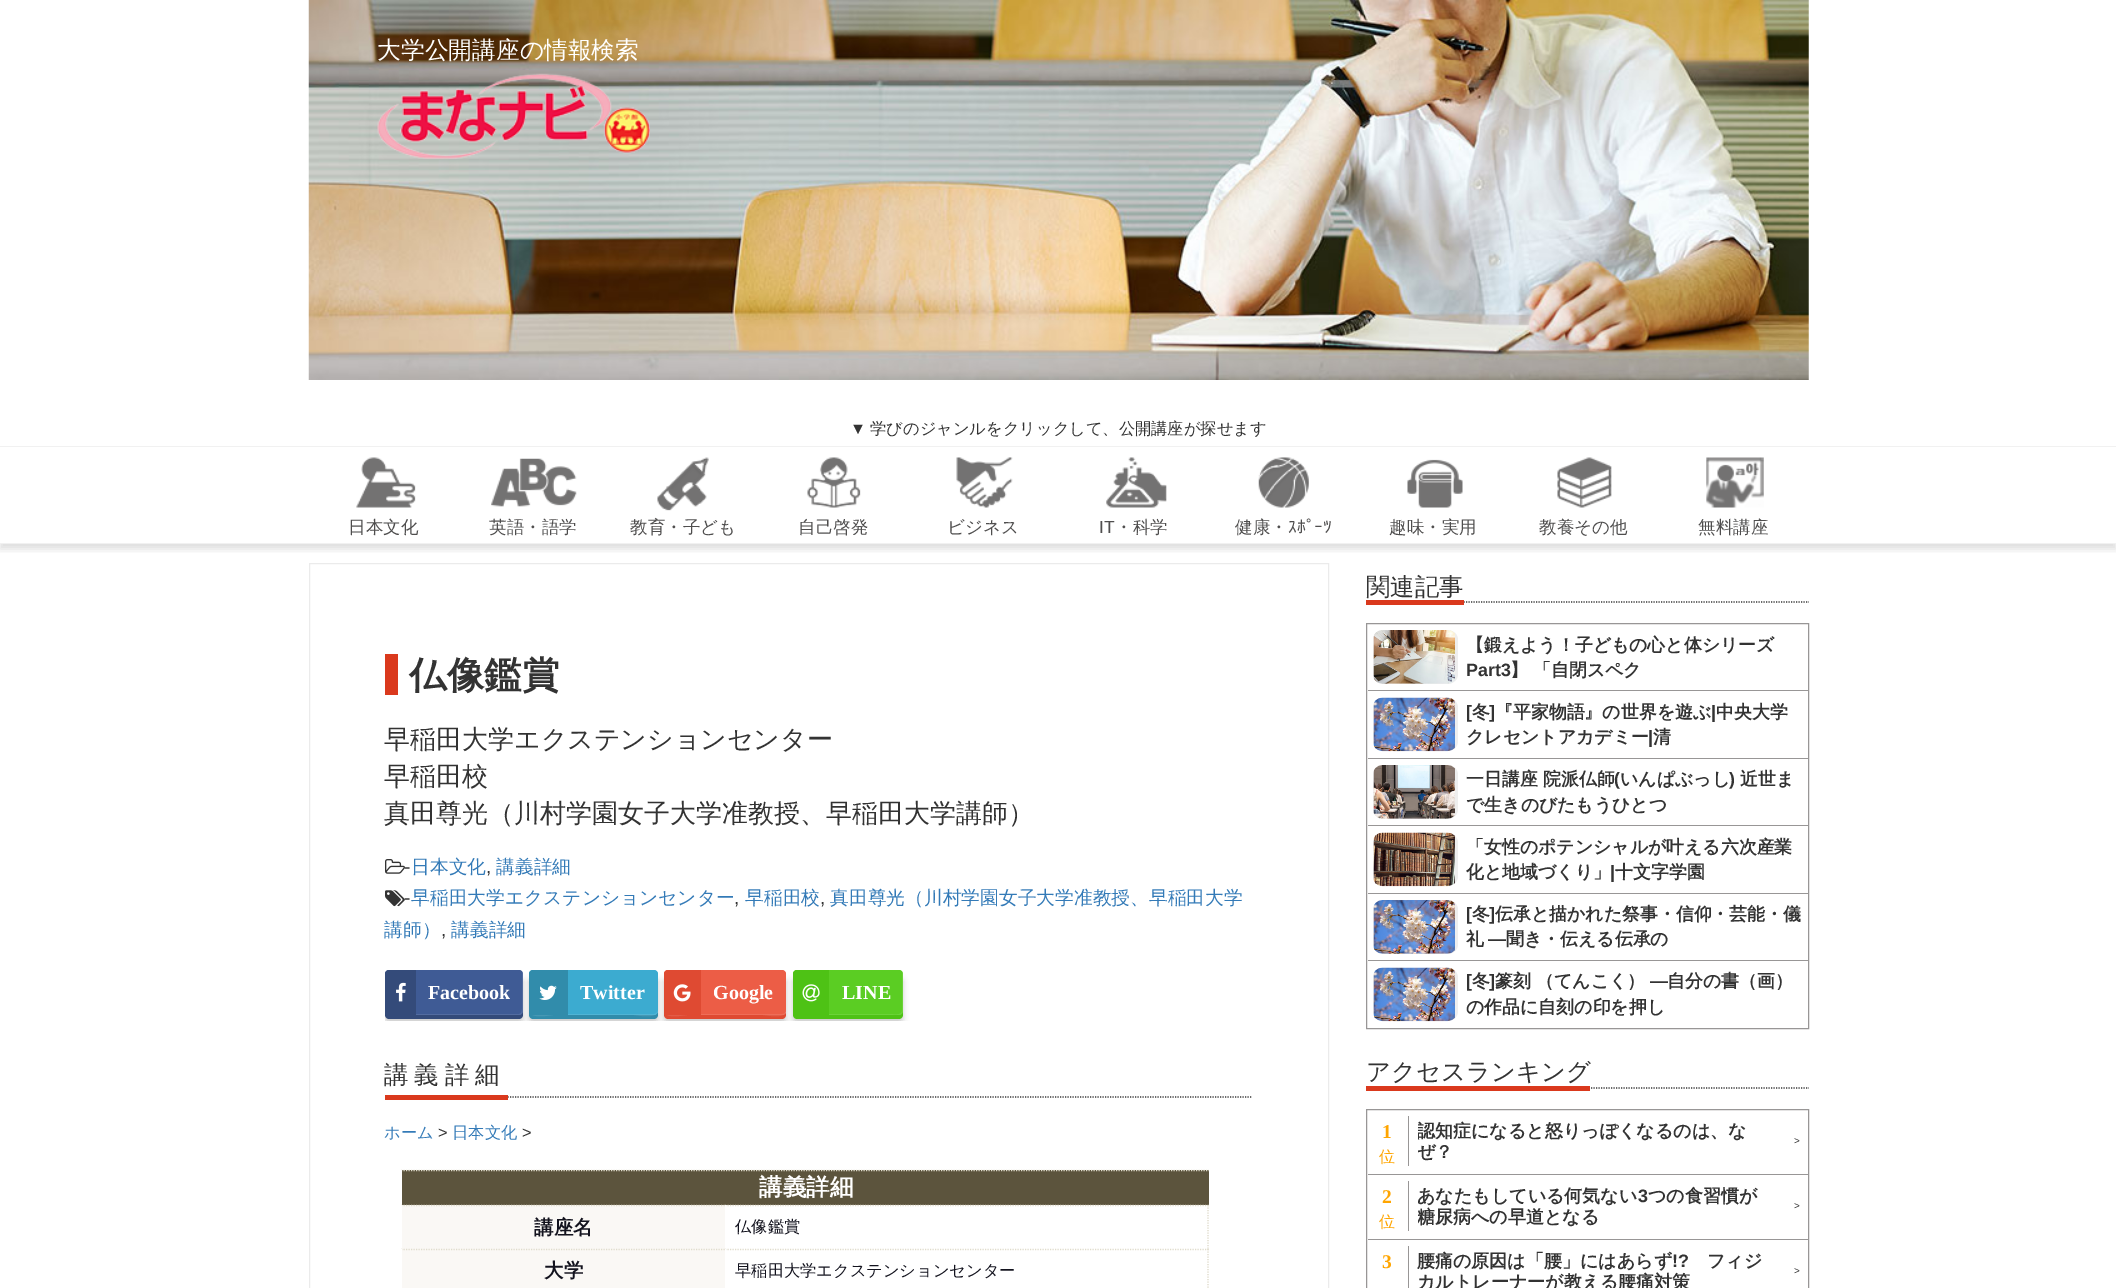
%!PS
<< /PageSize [2116 1288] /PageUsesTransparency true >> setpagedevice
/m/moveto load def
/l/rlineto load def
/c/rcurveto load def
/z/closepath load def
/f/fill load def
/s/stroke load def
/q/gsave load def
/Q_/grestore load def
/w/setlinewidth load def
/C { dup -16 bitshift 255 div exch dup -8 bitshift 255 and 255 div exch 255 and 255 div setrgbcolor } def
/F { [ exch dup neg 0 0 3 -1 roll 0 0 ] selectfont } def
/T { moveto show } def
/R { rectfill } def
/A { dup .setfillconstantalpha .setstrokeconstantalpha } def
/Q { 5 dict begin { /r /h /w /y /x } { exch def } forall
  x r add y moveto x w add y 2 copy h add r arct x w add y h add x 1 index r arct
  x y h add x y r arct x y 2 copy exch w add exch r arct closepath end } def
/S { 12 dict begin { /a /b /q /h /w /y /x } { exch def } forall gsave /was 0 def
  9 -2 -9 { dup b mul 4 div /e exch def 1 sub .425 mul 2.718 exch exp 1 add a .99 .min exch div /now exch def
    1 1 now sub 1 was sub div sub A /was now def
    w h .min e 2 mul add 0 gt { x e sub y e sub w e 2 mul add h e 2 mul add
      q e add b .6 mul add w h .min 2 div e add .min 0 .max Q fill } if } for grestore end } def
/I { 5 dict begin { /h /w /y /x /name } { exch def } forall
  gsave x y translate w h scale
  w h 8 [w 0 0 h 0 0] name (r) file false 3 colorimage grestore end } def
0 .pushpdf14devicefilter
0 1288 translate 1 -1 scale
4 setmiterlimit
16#FFFFFF C
0 0 2116 1288 R
(1.rgb) 308 0 1501 380 I
/WenQuanYiZenHei-Medium 23.75 F
(大学公開講座の情報検索) 377 58 T
(2.rgb) 377 73 273 86 I
/LiberationSans-Regular 16.25 F
16#333333 C
(▼) 850 434 T
/WenQuanYiZenHei-Medium 16.25 F
(学びのジャンルをクリックして、公開講座が探せます) 870 434 T
q
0 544 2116 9 rectclip
16#000000 C
0 451 2116 98 0 4 .13 S
Q_
16#F1F1F1 C
0 446 2116 1 R
0 543 2116 1 R
(3.rgb) 356 457 60 51 I
/WenQuanYiZenHei-Medium 17.5 F
16#4F4E4E C
(日本文化) 348 533 T
(4.rgb) 491 458 86 49 I
(英語・語学) 489 533 T
(5.rgb) 657 457 52 54 I
(教育・子ども) 630 533 T
(6.rgb) 807 457 54 51 I
(自己啓発) 798 533 T
(7.rgb) 956 457 57 51 I
(ビジネス) 947 533 T
(8.rgb) 1106 457 61 51 I
/LiberationSans-Regular 17.5 F
(IT) 1099 533 T
/WenQuanYiZenHei-Medium 17.5 F
(・科学) 1115 533 T
(9.rgb) 1258 457 51 51 I
(健康・) 1235 533 T
/IPAPGothic-Regular 17.5 F
(ｽﾎﾟｰﾂ) 1288 533 T
(10.rgb) 1407 459 56 49 I
/WenQuanYiZenHei-Medium 17.5 F
(趣味・実用) 1389 533 T
(11.rgb) 1557 457 55 51 I
(教養その他) 1539 533 T
(12.rgb) 1706 457 58 51 I
(無料講座) 1698 533 T
16#EBEBEB C
309.5 563.5 1019 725 rectstroke
16#DA391D C
385 654 13 41 R
/WenQuanYiZenHei-Bold 37.5 F
16#333333 C
(仏像鑑賞) 409 688 T
/WenQuanYiZenHei-Medium 26 F
(早稲田大学エクステンションセンター) 384 748 T
(早稲田校) 384 785 T
(真田尊光（川村学園女子大学准教授、早稲田大学講師）) 384 822 T
(13.rgb) 385 859 20 15 I
/LiberationSans-Regular 18.75 F
(-) 404 873 T
/WenQuanYiZenHei-Medium 18.75 F
16#337AB7 C
(日本文化) 411 873 T
(講義詳細) 496 873 T
/LiberationSans-Regular 18.75 F
16#333333 C
(,) 486 873 T
(14.rgb) 385 890 20 17 I
(-) 404 904 T
/WenQuanYiZenHei-Medium 18.75 F
16#337AB7 C
(早稲田大学エクステンションセンター) 411 904 T
(早稲田校) 745 904 T
(真田尊光（川村学園女子大学准教授、早稲田大学) 830 904 T
/LiberationSans-Regular 18.75 F
16#333333 C
(,) 734 904 T
(,) 820 904 T
/WenQuanYiZenHei-Medium 18.75 F
16#337AB7 C
(講師）) 384 936 T
/LiberationSans-Regular 18.75 F
16#333333 C
(,) 441 936 T
/WenQuanYiZenHei-Medium 18.75 F
16#337AB7 C
(講義詳細) 451 936 T
q
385 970 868 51 rectclip
16#000000 C
385 978 138 45 4 3 .2 S
Q_
16#344B7A C
385 1011 m 0 4 l 0 2 2 4 4 4 c 130 0 l 2 0 4 -2 4 -4 c 0 -37 l -1 -2 l 0 35 l 0 2 -1 4 -3 4 c -130 0 l -2 0 -4 -2 -4 -4 c z f
16#3F5B95 C
385 970 138 45 4 Q f
0.1 A
16#FFFFFF C
385 1010 m 0 1 l 0 2 2 4 4 4 c 130 0 l 2 0 4 -2 4 -4 c 0 -37 l 0 -1 0 -2 -1 -3 c 0 33 l 0 1 1 10 -3 10 c -108 0 l -8 0 -26 3 -26 -4 c z f
1 A
16#344B7A C
389 970 m 27 0 l 0 45 l -31 0 l 0 -41 l 0 -2 2 -4 4 -4 c z f
(15.rgb) 396 982 10 20 I
/LiberationSerif-Bold 20 F
16#FFFFFF C
(Facebook) 428 999 T
q
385 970 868 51 rectclip
16#000000 C
529 978 129 45 4 3 .2 S
Q_
16#318CAB C
529 1013 m 0 2 l 0 2 2 4 4 4 c 121 0 l 2 0 4 -2 4 -4 c 0 -37 l 0 -2 l 0 35 l 0 2 -2 4 -4 4 c -122 0 l -1 0 -2 -1 -3 -2 c z f
16#3CABD0 C
529 970 129 45 4 Q f
0.1 A
16#FFFFFF C
529 1010 m 0 10 22 5 24 5 c 81 0 l 2 0 24 5 24 -5 c 0 2 -2 4 -4 4 c -122 0 l -2 0 -3 -2 -3 -4 c z f
1 A
16#318CAB C
533 970 m 35 0 l 0 45 l -39 0 l 0 -41 l 0 -2 2 -4 4 -4 c z f
(16.rgb) 539 985 18 15 I
16#FFFFFF C
(Twitter) 580 999 T
q
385 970 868 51 rectclip
16#000000 C
664 978 122 45 4 3 .2 S
Q_
16#DF4A32 C
664 1013 m 0 2 l 0 2 2 4 4 4 c 114 0 l 2 0 4 -2 4 -4 c 0 -2 l -1 1 -2 2 -4 2 c -114 0 l -2 0 -3 -1 -4 -2 c z f
16#EC5D46 C
664 970 122 45 4 Q f
0.1 A
16#FFFFFF C
664 1010 m 0 10 20 5 23 5 c 76 0 l 3 0 23 5 23 -5 c 0 2 -1 4 -4 4 c -114 0 l -3 0 -4 -2 -4 -4 c z f
1 A
16#DF4A32 C
668 970 m 33 0 l 0 45 l -37 0 l 0 -41 l 0 -2 2 -4 4 -4 c z f
(17.rgb) 673 984 18 18 I
16#FFFFFF C
(Google) 713 999 T
q
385 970 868 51 rectclip
16#000000 C
793 978 110 45 4 3 .2 S
Q_
16#4EC215 C
793 1013 m 0 2 l 0 2 2 4 4 4 c 102 0 l 2 0 4 -2 4 -4 c 0 -37 l -1 -2 l 0 35 l 0 2 -1 4 -3 4 c -103 0 l -1 0 -2 -1 -3 -2 c z f
16#5BCD23 C
793 970 110 45 4 Q f
0.1 A
16#FFFFFF C
794 1013 m 0 1 2 2 3 2 c 102 0 l 2 0 4 -2 4 -4 c 0 -37 l 0 -1 0 -2 -1 -3 c 0 26 l 0 21 3 17 -20 17 c -86 0 l z f
1 A
16#4EC215 C
797 970 m 32 0 l 0 45 l -36 0 l 0 -41 l 0 -2 2 -4 4 -4 c z f
(18.rgb) 802 984 18 18 I
16#FFFFFF C
(LINE) 842 999 T
16#333333 C
1.2 w
[1.25 1.25] 0 setdash
385 1097 m 867.5 0 l s
16#DA391D C
385 1095 123 5 R
/WenQuanYiZenHei-Medium 24.4 F
16#333333 C
384 1083 m 6 0 (講義詳細) ashow
/WenQuanYiZenHei-Medium 16.25 F
16#337AB7 C
(ホーム) 384 1138 T
/LiberationSans-Regular 16.25 F
16#333333 C
(>) 438 1138 T
/WenQuanYiZenHei-Medium 16.25 F
16#337AB7 C
(日本文化) 452 1138 T
/LiberationSans-Regular 16.25 F
16#333333 C
(>) 522 1138 T
16#5C543D C
402 1170 807 35 R
16#E0DCCC C
401 1170.5 m 808 0 l s
16#FFFFFF C
401 1170 1 2 R
/WenQuanYiZenHei-Bold 23.5 F
(講義詳細) 759 1195 T
16#FAF8F5 C
402 1205 323 83 R
16#E0DCCC C
401 1205.5 m 324 0 l s
16#FFFFFF C
401 1205 1 2 R
/WenQuanYiZenHei-Bold 19.5 F
16#13131E C
(講座名) 534 1234 T
16#E0DCCC C
725 1205.5 m 484 0 l s
1208 1205 m 0 44 l s
16#FFFFFF C
725 1205 1 2 R
/WenQuanYiZenHei-Medium 16.25 F
16#13131E C
(仏像鑑賞) 735 1232 T
16#E0DCCC C
401 1249.5 m 324 0 l s
16#FFFFFF C
401 1249 1 2 R
/WenQuanYiZenHei-Bold 19.5 F
16#13131E C
(大学) 544 1277 T
16#E0DCCC C
725 1249.5 m 484 0 l s
1208 1249 m 0 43.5 l s
16#FFFFFF C
725 1249 1 2 R
/WenQuanYiZenHei-Medium 16.25 F
16#13131E C
(早稲田大学エクステンションセンター) 735 1276 T
16#333333 C
1366 602 m 443 0 l s
16#DA391D C
1366 600 98 5 R
/WenQuanYiZenHei-Medium 24.4 F
16#333333 C
(関連記事) 1366 595 T
16#989696 C
1 w
[] 0 setdash
1366.5 623.5 442 405 rectstroke
1368 690 440 1 R
16#EEEEEE C
1373 630 85 54 10 Q f
(19.rgb) 1373 630 82 54 I
/WenQuanYiZenHei-Bold 17.9 F
16#333333 C
(【鍛えよう！子どもの心と体シリーズ) 1466 651 T
/LiberationSans-Bold 17.9 F
(Part3) 1466 676 T
/WenQuanYiZenHei-Bold 17.9 F
(】) 1510 676 T
(「自閉スペク) 1533 676 T
16#989696 C
1368 758 440 1 R
16#EEEEEE C
1373 698 85 53 10 Q f
(20.rgb) 1373 697 82 55 I
/LiberationSans-Bold 17.9 F
16#333333 C
([) 1466 718 T
/WenQuanYiZenHei-Bold 17.9 F
(冬) 1472 718 T
/LiberationSans-Bold 17.9 F
(]) 1489 718 T
/WenQuanYiZenHei-Bold 17.9 F
(『平家物語』の世界を遊ぶ) 1495 718 T
/LiberationSans-Bold 17.9 F
(|) 1711 718 T
/WenQuanYiZenHei-Bold 17.9 F
(中央大学) 1716 718 T
(クレセントアカデミー) 1466 743 T
/LiberationSans-Bold 17.9 F
(|) 1648 743 T
/WenQuanYiZenHei-Bold 17.9 F
(清) 1653 743 T
16#989696 C
1368 825 440 1 R
16#EEEEEE C
1373 765 85 54 10 Q f
(21.rgb) 1373 765 82 54 I
16#333333 C
(一日講座 院派仏師) 1466 785 T
/LiberationSans-Bold 17.9 F
(\() 1614 785 T
/WenQuanYiZenHei-Bold 17.9 F
(いんぱぶっし) 1620 785 T
/LiberationSans-Bold 17.9 F
(\)) 1729 785 T
/WenQuanYiZenHei-Bold 17.9 F
(近世ま) 1740 785 T
(で生きのびたもうひとつ) 1466 811 T
16#989696 C
1368 893 440 1 R
16#EEEEEE C
1373 833 85 53 10 Q f
(22.rgb) 1373 832 82 55 I
16#333333 C
(「女性のポテンシャルが叶える六次産業) 1466 853 T
(化と地域づくり」) 1466 878 T
/LiberationSans-Bold 17.9 F
(|) 1610 878 T
/WenQuanYiZenHei-Bold 17.9 F
(十文字学園) 1615 878 T
16#989696 C
1368 960 440 1 R
16#EEEEEE C
1373 900 85 54 10 Q f
(23.rgb) 1373 900 82 54 I
/LiberationSans-Bold 17.9 F
16#333333 C
([) 1466 920 T
/WenQuanYiZenHei-Bold 17.9 F
(冬) 1472 920 T
/LiberationSans-Bold 17.9 F
(]) 1489 920 T
/WenQuanYiZenHei-Bold 17.9 F
(伝承と描かれた祭事・信仰・芸能・儀) 1495 920 T
(礼) 1466 945 T
/LiberationSans-Bold 17.9 F
(―) 1488 945 T
/WenQuanYiZenHei-Bold 17.9 F
(聞き・伝える伝承の) 1506 945 T
16#EEEEEE C
1373 968 85 53 10 Q f
(24.rgb) 1373 967 82 55 I
/LiberationSans-Bold 17.9 F
16#333333 C
([) 1466 987 T
/WenQuanYiZenHei-Bold 17.9 F
(冬) 1472 987 T
/LiberationSans-Bold 17.9 F
(]) 1489 987 T
/WenQuanYiZenHei-Bold 17.9 F
(篆刻 （てんこく）) 1495 987 T
/LiberationSans-Bold 17.9 F
(―) 1650 987 T
/WenQuanYiZenHei-Bold 17.9 F
(自分の書（画）) 1667 987 T
(の作品に自刻の印を押し) 1466 1013 T
1.2 w
[1.25 1.25] 0 setdash
1366 1088 m 443 0 l s
16#DA391D C
1366 1086 224 5 R
/WenQuanYiZenHei-Medium 24.4 F
16#333333 C
(アクセスランキング) 1366 1080 T
16#989696 C
1 w
[] 0 setdash
1366.5 1109.5 442 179 rectstroke
/LiberationSerif-Bold 19.5 F
16#FFA500 C
(1) 1382 1138 T
/WenQuanYiZenHei-Medium 16 F
(位) 1379 1162 T
16#989696 C
1368 1174 440 1 R
1408 1116 1 50 R
q
1418 1114 358 50 rectclip
/WenQuanYiZenHei-Bold 18 F
16#333333 C
(認知症になると怒りっぽくなるのは、な) 1417 1137 T
(ぜ？) 1417 1158 T
Q_
/LiberationSans-Regular 10 F
16#333333 C
(>) 1794 1144 T
/LiberationSerif-Bold 19.5 F
16#FFA500 C
(2) 1382 1203 T
/WenQuanYiZenHei-Medium 16 F
(位) 1379 1227 T
16#989696 C
1368 1239 440 1 R
1408 1181 1 50 R
/WenQuanYiZenHei-Bold 18 F
16#333333 C
(あなたもしている何気ない) 1417 1202 T
/LiberationSans-Bold 18 F
(3) 1638 1202 T
/WenQuanYiZenHei-Bold 18 F
(つの食習慣が) 1648 1202 T
q
1418 1179 358 50 rectclip
(糖尿病への早道となる) 1417 1223 T
Q_
/LiberationSans-Regular 10 F
(>) 1794 1209 T
/LiberationSerif-Bold 19.5 F
16#FFA500 C
(3) 1382 1268 T
16#989696 C
1408 1246 1 42 R
/WenQuanYiZenHei-Bold 18 F
16#333333 C
(腰痛の原因は「腰」にはあらず) 1417 1267 T
/LiberationSans-Bold 18 F
(!?) 1672 1267 T
/WenQuanYiZenHei-Bold 18 F
(フィジ) 1707 1267 T
(カルトレーナーが教える腰痛対策) 1417 1288 T
/LiberationSans-Regular 10 F
(>) 1794 1274 T
.poppdf14devicefilter showpage
